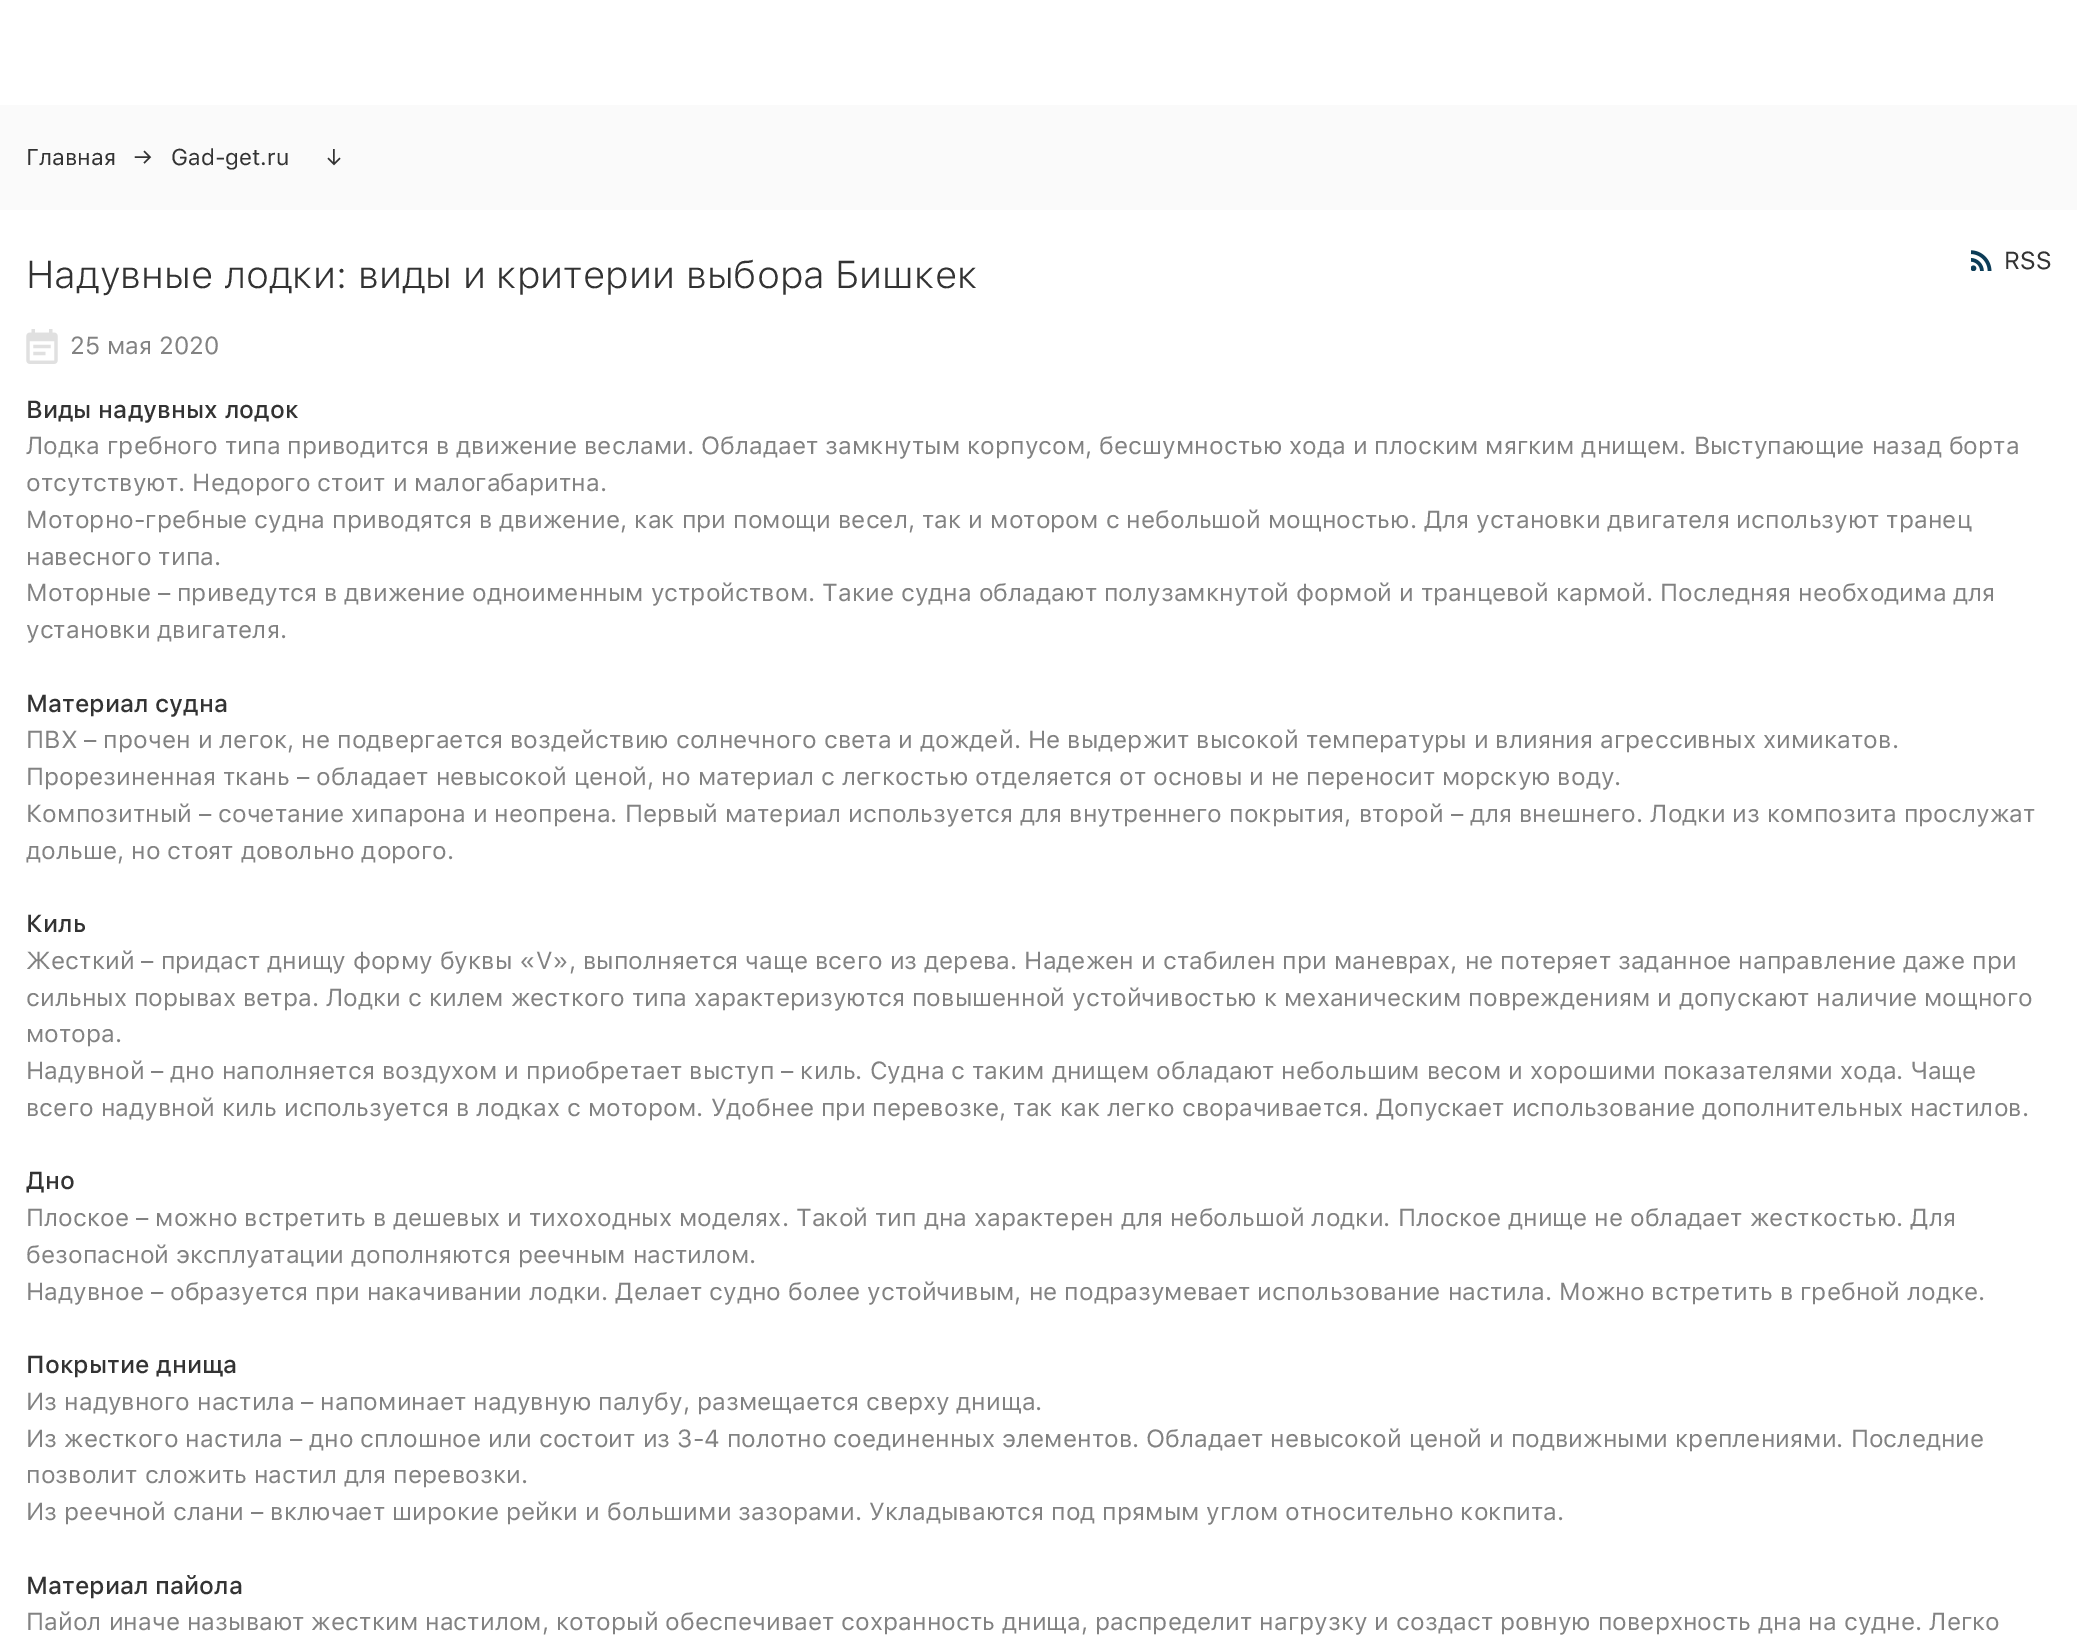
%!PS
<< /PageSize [2077 1640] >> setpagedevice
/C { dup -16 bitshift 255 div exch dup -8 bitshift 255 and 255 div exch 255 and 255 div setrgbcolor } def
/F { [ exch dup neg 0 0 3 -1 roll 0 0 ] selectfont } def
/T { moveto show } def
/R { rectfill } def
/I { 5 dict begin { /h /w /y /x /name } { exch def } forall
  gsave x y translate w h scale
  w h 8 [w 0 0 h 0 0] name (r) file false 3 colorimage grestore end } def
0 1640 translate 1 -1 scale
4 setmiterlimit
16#FFFFFF C
0 0 2077 1640 R
16#FAFAFA C
0 105 2077 105 R
/SFProText-Regular 22.75 F
16#333333 C
(Главная) 26 165 T
(→) 133 165 T
(Gad-get.ru) 171 165 T
(↓) 324 165 T
/SFProText-Light 38.5 F
(Надувные лодки: виды и критерии выбора Бишкек) 26 288 T
(1.rgb) 1971 250 21 21 I
/SFProText-Regular 24.5 F
(RSS) 2004 269 T
(2.rgb) 26 329 32 35 I
16#828282 C
(25 мая 2020) 70 354 T
/SFProText-Medium 24.5 F
16#333333 C
(Виды надувных лодок) 26 418 T
/SFProText-Regular 24.5 F
16#828282 C
(Лодка гребного типа приводится в движение веслами. Обладает замкнутым корпусом, бесшумностью хода и плоским мягким днищем. Выступающие назад борта) 26 454 T
(отсутствуют. Недорого стоит и малогабаритна.) 26 491 T
(Моторно-гребные судна приводятся в движение, как при помощи весел, так и мотором c небольшой мощностью. Для установки двигателя используют транец) 26 528 T
(навесного типа.) 26 565 T
(Моторные – приведутся в движение одноименным устройством. Такие судна обладают полузамкнутой формой и транцевой кармой. Последняя необходима для) 26 601 T
(установки двигателя.) 26 638 T
/SFProText-Medium 24.5 F
16#333333 C
(Материал судна) 26 712 T
/SFProText-Regular 24.5 F
16#828282 C
(ПВХ – прочен и легок, не подвергается воздействию солнечного света и дождей. Не выдержит высокой температуры и влияния агрессивных химикатов.) 26 748 T
(Прорезиненная ткань – обладает невысокой ценой, но материал с легкостью отделяется от основы и не переносит морскую воду.) 26 785 T
(Композитный – сочетание хипарона и неопрена. Первый материал используется для внутреннего покрытия, второй – для внешнего. Лодки из композита прослужат) 26 822 T
(дольше, но стоят довольно дорого.) 26 859 T
/SFProText-Medium 24.5 F
16#333333 C
(Киль) 26 932 T
/SFProText-Regular 24.5 F
16#828282 C
(Жесткий – придаст днищу форму буквы «V», выполняется чаще всего из дерева. Надежен и стабилен при маневрах, не потеряет заданное направление даже при) 26 969 T
(сильных порывах ветра. Лодки с килем жесткого типа характеризуются повышенной устойчивостью к механическим повреждениям и допускают наличие мощного) 26 1006 T
(мотора.) 26 1042 T
(Надувной – дно наполняется воздухом и приобретает выступ – киль. Судна с таким днищем обладают небольшим весом и хорошими показателями хода. Чаще) 26 1079 T
(всего надувной киль используется в лодках с мотором. Удобнее при перевозке, так как легко сворачивается. Допускает использование дополнительных настилов.) 26 1116 T
/SFProText-Medium 24.5 F
16#333333 C
(Дно) 26 1189 T
/SFProText-Regular 24.5 F
16#828282 C
(Плоское – можно встретить в дешевых и тихоходных моделях. Такой тип дна характерен для небольшой лодки. Плоское днище не обладает жесткостью. Для) 26 1226 T
(безопасной эксплуатации дополняются реечным настилом.) 26 1263 T
(Надувное – образуется при накачивании лодки. Делает судно более устойчивым, не подразумевает использование настила. Можно встретить в гребной лодке.) 26 1300 T
/SFProText-Medium 24.5 F
16#333333 C
(Покрытие днища) 26 1373 T
/SFProText-Regular 24.5 F
16#828282 C
(Из надувного настила – напоминает надувную палубу, размещается сверху днища.) 26 1410 T
(Из жесткого настила – дно сплошное или состоит из 3-4 полотно соединенных элементов. Обладает невысокой ценой и подвижными креплениями. Последние) 26 1447 T
(позволит сложить настил для перевозки.) 26 1483 T
(Из реечной слани – включает широкие рейки и большими зазорами. Укладываются под прямым углом относительно кокпита.) 26 1520 T
/SFProText-Medium 24.5 F
16#333333 C
(Материал пайола) 26 1594 T
/SFProText-Regular 24.5 F
16#828282 C
(Пайол иначе называют жестким настилом, который обеспечивает сохранность днища, распределит нагрузку и создаст ровную поверхность дна на судне. Легко) 26 1630 T
showpage
